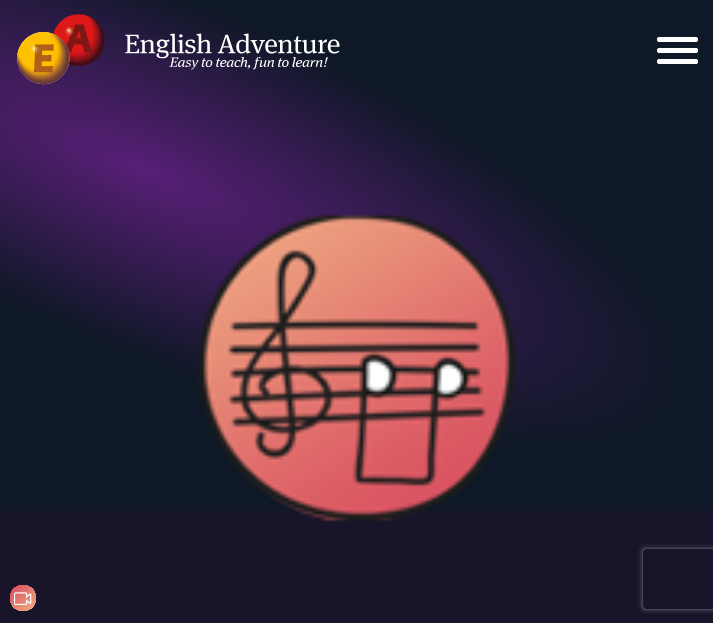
%!PS
<< /PageSize [713 623] /PageUsesTransparency true >> setpagedevice
/m/moveto load def
/l/rlineto load def
/c/rcurveto load def
/z/closepath load def
/f/fill load def
/q/gsave load def
/Q_/grestore load def
/C { dup -16 bitshift 255 div exch dup -8 bitshift 255 and 255 div exch 255 and 255 div setrgbcolor } def
/R { rectfill } def
/A { dup .setfillconstantalpha .setstrokeconstantalpha } def
/O { newpath 0 360 arc closepath } def
/Q { 5 dict begin { /r /h /w /y /x } { exch def } forall
  x r add y moveto x w add y 2 copy h add r arct x w add y h add x 1 index r arct
  x y h add x y r arct x y 2 copy exch w add exch r arct closepath end } def
/S { 12 dict begin { /a /b /q /h /w /y /x } { exch def } forall gsave /was 0 def
  9 -2 -9 { dup b mul 4 div /e exch def 1 sub .425 mul 2.718 exch exp 1 add a .99 .min exch div /now exch def
    1 1 now sub 1 was sub div sub A /was now def
    w h .min e 2 mul add 0 gt { x e sub y e sub w e 2 mul add h e 2 mul add
      q e add b .6 mul add w h .min 2 div e add .min 0 .max Q fill } if } for grestore end } def
/I { 5 dict begin { /h /w /y /x /name } { exch def } forall
  gsave x y translate w h scale
  w h 8 [w 0 0 h 0 0] name (r) file false 3 colorimage grestore end } def
0 .pushpdf14devicefilter
0 623 translate 1 -1 scale
4 setmiterlimit
16#18142A C
0 0 713 623 R
(1.rgb) 0 0 713 511 I
(2.rgb) 17 14 323 71 I
16#FFFFFF C
657 37 41 5 2.5 Q f
657 48 41 5 2.5 Q f
657 59 41 5 2.5 Q f
(3.rgb) 197 214 320 308 I
q 23 598 13 O clip newpath
<< /ShadingType 2 /ColorSpace /DeviceRGB /Coords [11 584 35 612] /Extend [true true] /Function << /FunctionType 2 /Domain [0 1] /C0 [.843 .29 .365] /C1 [.945 .698 .529] /N 1 >> >> shfill Q_
(4.rgb) 14 592 18 13 I
q
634 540 m 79 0 l 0 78 l -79 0 l z 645 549 m 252 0 l 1 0 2 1 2 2 c 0 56 l 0 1 -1 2 -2 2 c -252 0 l -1 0 -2 -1 -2 -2 c 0 -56 l 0 -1 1 -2 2 -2 c z eoclip newpath
16#808080 C
643 549 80 60 2 2.5 1 S
Q_
.poppdf14devicefilter showpage
